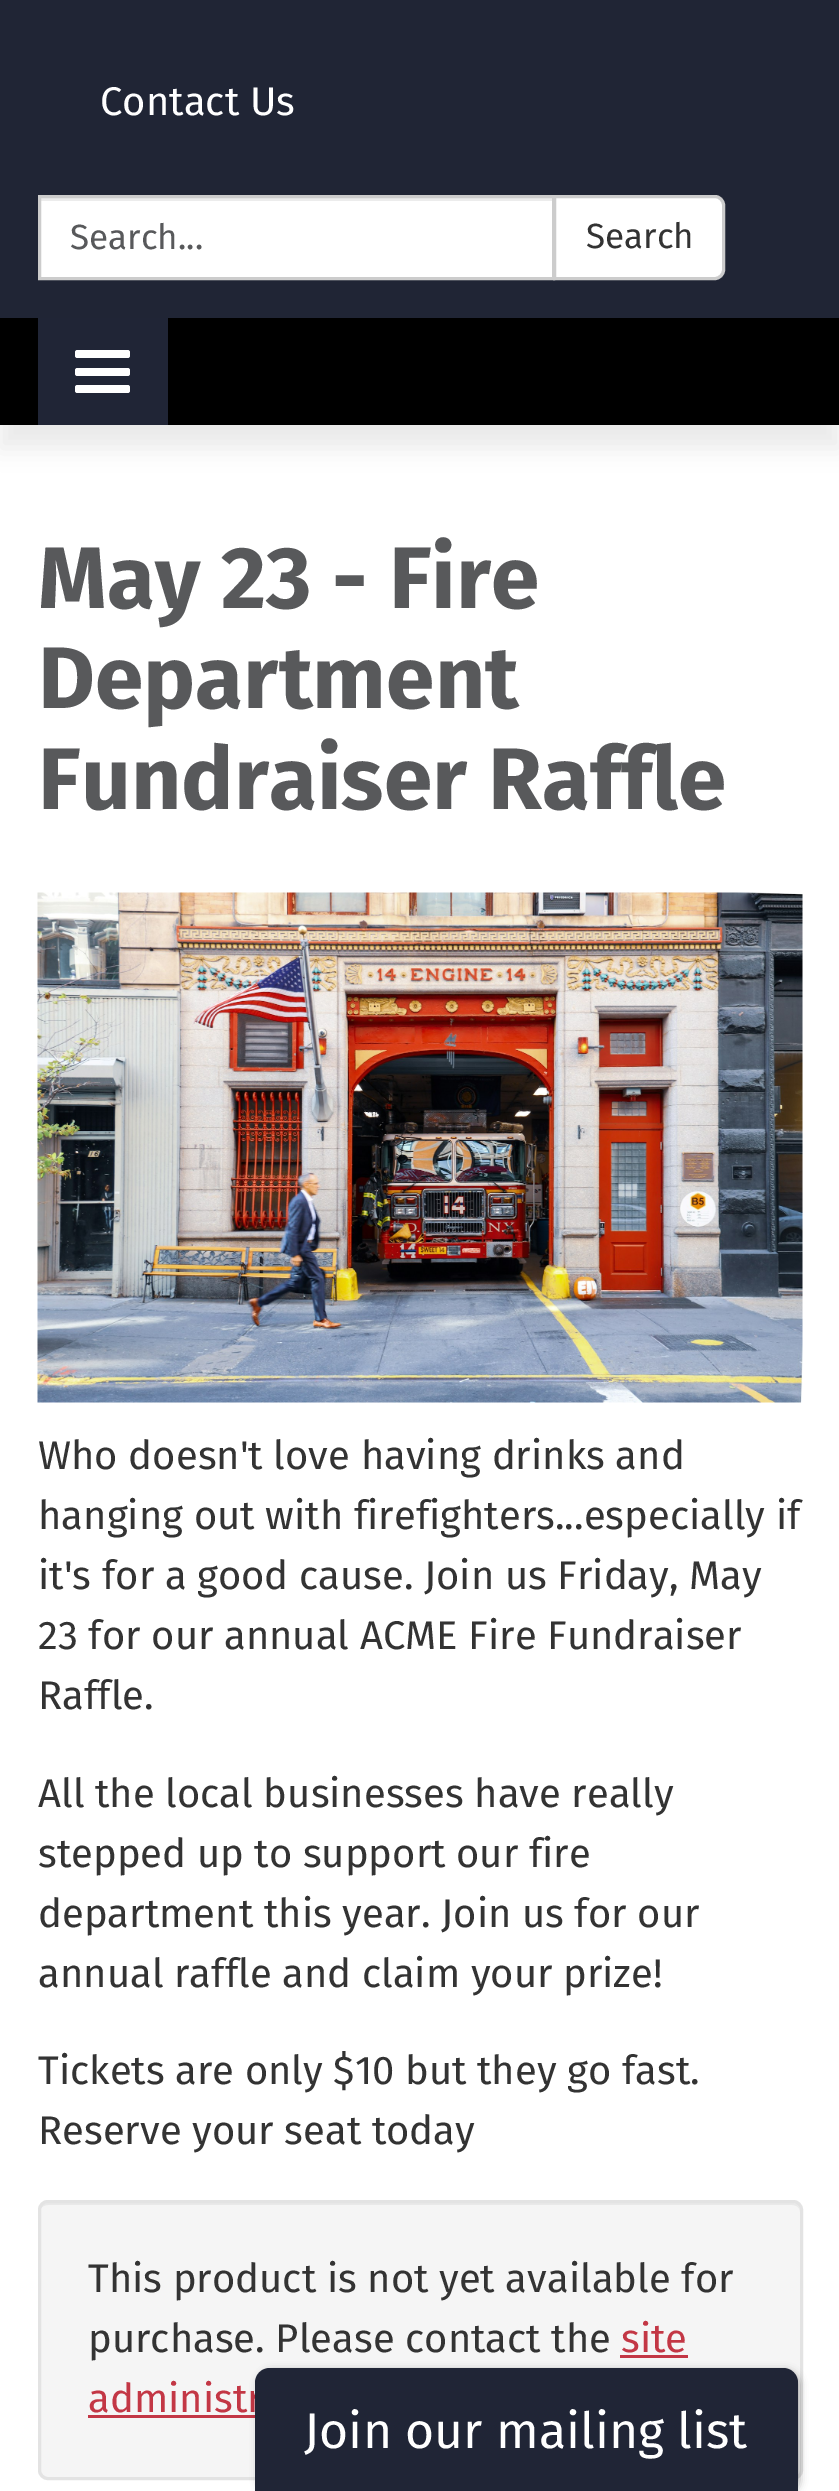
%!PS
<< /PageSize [839 2491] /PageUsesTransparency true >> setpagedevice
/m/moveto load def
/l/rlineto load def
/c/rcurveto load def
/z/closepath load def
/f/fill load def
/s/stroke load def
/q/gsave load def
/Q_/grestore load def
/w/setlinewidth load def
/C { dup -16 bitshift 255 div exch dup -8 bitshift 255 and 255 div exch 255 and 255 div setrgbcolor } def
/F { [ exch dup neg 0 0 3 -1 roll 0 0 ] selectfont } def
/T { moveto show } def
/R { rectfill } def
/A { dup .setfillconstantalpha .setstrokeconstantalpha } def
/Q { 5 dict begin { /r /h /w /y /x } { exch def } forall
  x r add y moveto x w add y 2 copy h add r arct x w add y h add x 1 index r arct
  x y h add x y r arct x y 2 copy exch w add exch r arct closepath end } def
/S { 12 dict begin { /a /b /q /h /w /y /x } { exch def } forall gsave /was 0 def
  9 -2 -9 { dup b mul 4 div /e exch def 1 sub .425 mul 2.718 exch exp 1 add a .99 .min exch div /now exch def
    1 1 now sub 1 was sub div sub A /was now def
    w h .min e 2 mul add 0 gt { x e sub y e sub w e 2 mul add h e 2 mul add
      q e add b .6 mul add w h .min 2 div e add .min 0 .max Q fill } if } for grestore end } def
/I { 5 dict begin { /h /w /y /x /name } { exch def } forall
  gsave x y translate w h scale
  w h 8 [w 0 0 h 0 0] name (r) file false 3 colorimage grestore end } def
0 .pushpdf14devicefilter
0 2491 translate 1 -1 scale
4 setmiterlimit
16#202535 C
0 0 839 2491 R
/FiraSans-Regular 40 F
16#FFFFFF C
(Contact Us) 100 115 T
41 201 511 76 R
16#ECECEC C
40 198 513 3 R
16#CCCCCC C
3 w
39.5 196.5 514 82 rectstroke
/FiraSans-Regular 35 F
16#58595B C
(Search...) 70 249 T
16#FFFFFF C
554.5 196.5 m 160.5 0 l 4.5 0 8.5 4 8.5 8.5 c 0 65 l 0 4.5 -4 8.5 -8.5 8.5 c -160.5 0 l z q f Q_
16#CCCCCC C
s
16#333333 C
(Search) 586 248 T
16#FFFFFF C
0 425 839 2066 R
16#000000 C
0 340 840 108 0 11 .08 S
0 318 839 107 R
16#202536 C
38 318 130 107 R
16#FFFFFF C
75 350 55 8 2.5 Q f
75 368 55 8 2.5 Q f
75 385 55 8 2.5 Q f
/FiraSans-Bold 87.5 F
16#58595B C
(May 23 - Fire) 38 608 T
(Department) 38 708 T
(Fundraiser Raffle) 38 809 T
(1.rgb) 37 892 766 511 I
/FiraSans-Regular 40 F
16#333333 C
(Who doesn't love having drinks and) 38 1469 T
(hanging out with firefighters...especially if) 38 1529 T
(it's for a good cause. Join us Friday, May) 38 1589 T
(23 for our annual ACME Fire Fundraiser) 38 1649 T
(Raffle.) 38 1709 T
(All the local businesses have really) 38 1807 T
(stepped up to support our fire) 38 1867 T
(department this year. Join us for our) 38 1927 T
(annual raffle and claim your prize!) 38 1987 T
(Tickets are only $10 but they go fast.) 38 2084 T
(Reserve your seat today) 38 2144 T
16#F5F5F5 C
38 2200 765 280 10 Q f
16#E9E9E9 C
48 2205 m 744 0 l 5 0 8 3 8 7 c 0 -5 -3 -9 -8 -9 c -744 0 l -5 0 -8 4 -8 9 c 0 -4 3 -7 8 -7 c z f
16#E3E3E3 C
39.5 2201.5 762 277 8.5 Q s
16#333333 C
(This product is not yet available for) 88 2292 T
(purchase. Please contact the) 88 2352 T
16#C33745 C
(site) 621 2352 T
620 2355 68 3 R
(administr) 88 2412 T
88 2415 167 3 R
16#000000 C
258 2370 542 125 15 4 .3 S
16#202536 C
270 2368 m 513 0 l 8.5 0 15 6.5 15 15 c 0 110 l -543 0 l 0 -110 l 0 -8.5 6.5 -15 15 -15 c z f
/FiraSans-Regular 50 F
16#FFFFFF C
(Join our mailing list) 304 2448 T
.poppdf14devicefilter showpage
